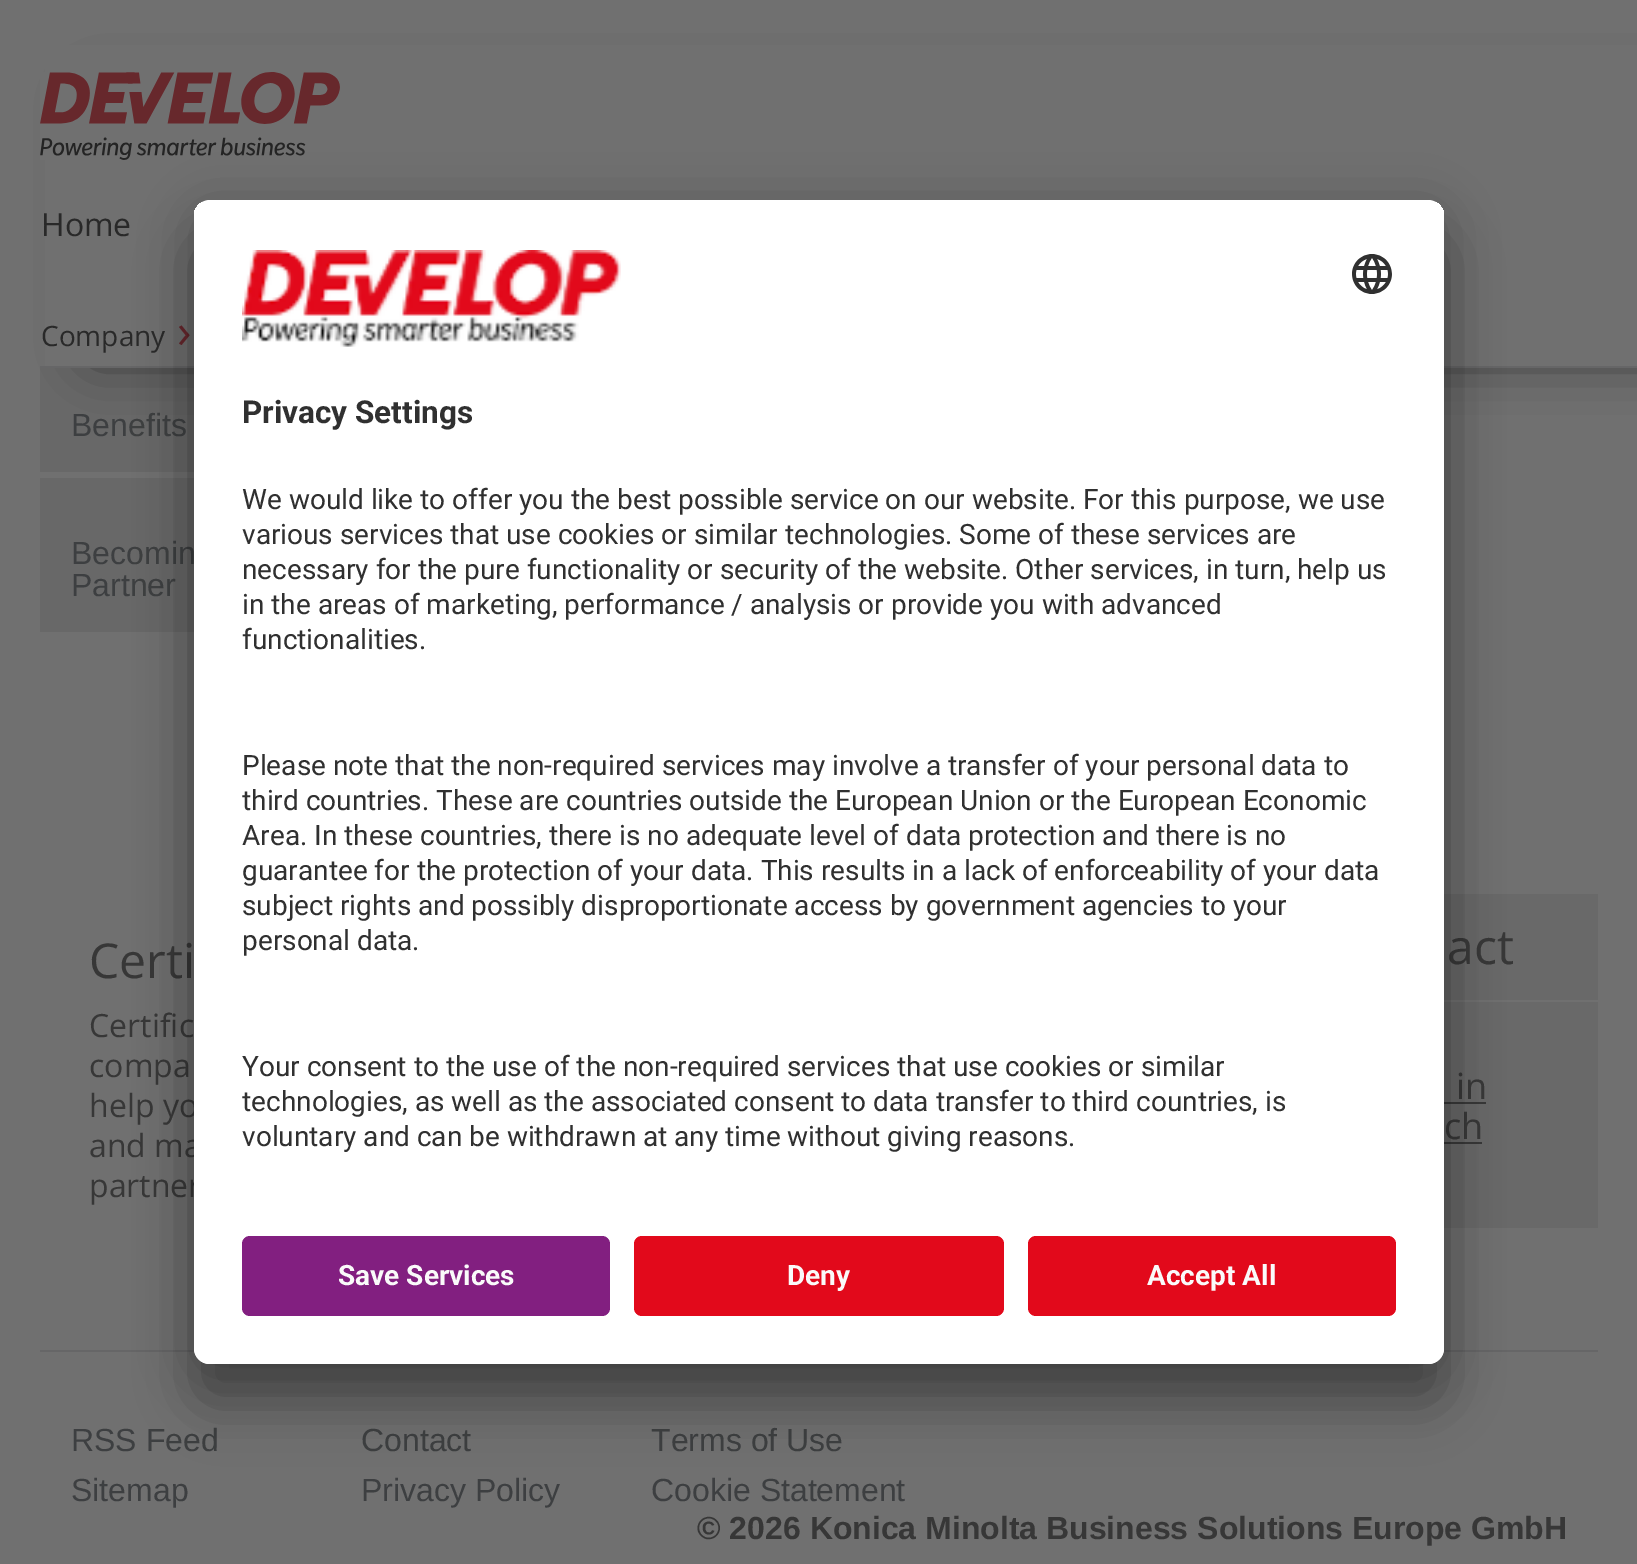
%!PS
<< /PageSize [1637 1564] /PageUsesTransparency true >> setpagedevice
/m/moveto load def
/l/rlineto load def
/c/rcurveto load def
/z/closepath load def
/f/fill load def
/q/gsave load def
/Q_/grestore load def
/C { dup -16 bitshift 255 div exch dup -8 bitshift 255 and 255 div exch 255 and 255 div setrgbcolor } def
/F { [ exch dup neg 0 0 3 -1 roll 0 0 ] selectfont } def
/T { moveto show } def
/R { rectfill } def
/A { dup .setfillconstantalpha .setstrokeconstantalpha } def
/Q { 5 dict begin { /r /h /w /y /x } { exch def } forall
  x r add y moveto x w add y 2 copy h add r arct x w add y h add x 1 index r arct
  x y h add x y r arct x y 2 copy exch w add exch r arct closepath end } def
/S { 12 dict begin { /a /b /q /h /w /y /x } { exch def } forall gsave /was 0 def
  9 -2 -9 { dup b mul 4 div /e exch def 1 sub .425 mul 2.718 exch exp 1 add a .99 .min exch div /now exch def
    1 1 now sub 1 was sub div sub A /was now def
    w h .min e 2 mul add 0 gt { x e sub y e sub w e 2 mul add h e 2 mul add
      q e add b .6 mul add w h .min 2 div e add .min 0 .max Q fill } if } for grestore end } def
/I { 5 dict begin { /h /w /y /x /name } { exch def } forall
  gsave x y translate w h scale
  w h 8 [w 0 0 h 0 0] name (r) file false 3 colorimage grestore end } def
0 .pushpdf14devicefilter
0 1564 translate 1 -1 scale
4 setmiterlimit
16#707070 C
0 0 1637 1564 R
16#686868 C
40 368 154 104 R
16#242424 C
94 94 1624 260 0 27 1 S
16#707070 C
45 45 1592 321 R
(1.rgb) 40 72 300 88 I
/OpenSans-Regular 32 F
16#292929 C
(Home) 41 236 T
16#666667 C
40 366 1597 2 R
/OpenSans-Regular 28 F
16#292929 C
(Company) 41 346 T
/OpenSans-Regular 48 F
16#68262C C
(›) 177 348 T
/LiberationSans-Regular 32 F
16#3D3F41 C
(Benefits) 71 436 T
16#686868 C
40 478 154 154 R
16#3D3F41 C
(Becomin) 71 564 T
(Partner) 71 596 T
/OpenSans-Regular 48 F
16#373737 C
(Certi) 89 978 T
/OpenSans-Regular 32 F
(Certific) 89 1037 T
(compa) 89 1077 T
(help yo) 89 1117 T
(and ma) 89 1157 T
(partner) 89 1197 T
16#696969 C
1444 894 154 334 R
16#707070 C
1444 1000 154 2 R
/OpenSans-Regular 48 F
16#373737 C
(act) 1447 964 T
/OpenSans-Regular 36 F
(in) 1456 1099 T
1444 1102 42 2 R
(ch) 1444 1139 T
1444 1142 38 2 R
16#666667 C
40 1350 1558 2 R
/LiberationSans-Regular 32 F
16#3D3F41 C
(RSS Feed) 71 1451 T
(Contact) 361 1451 T
(Terms of Use) 651 1451 T
(Sitemap) 71 1501 T
(Privacy Policy) 361 1501 T
(Cookie Statement) 651 1501 T
/LiberationSans-Bold 32 F
16#373737 C
(© 2026 Konica Minolta Business Solutions Europe GmbH) 697 1539 T
16#000000 C
194 240 1250 1164 16 28 .3 S
194 210 1250 1164 16 26 .22 S
16#FFFFFF C
194 200 1250 1164 16 Q f
q
194 200 1250 1164 16 Q clip newpath
210 200 m 1218 0 l 9 0 16 7 16 16 c 0 1004 l -1250 0 l 0 -1004 l 0 -9 7 -16 16 -16 c z clip newpath
194 202 1250 1018 R
Q_
(2.rgb) 242 250 379 97 I
(3.rgb) 1352 254 40 40 I
/Roboto-Bold 31.5 F
16#303030 C
(Privacy Settings) 242 423 T
/Roboto-Regular 28 F
(We would like to offer you the best possible service on our website. For this purpose, we use) 242 509 T
(various services that use cookies or similar technologies. Some of these services are) 242 544 T
(necessary for the pure functionality or security of the website. Other services, in turn, help us) 242 579 T
(in the areas of marketing, performance / analysis or provide you with advanced) 242 614 T
(functionalities.) 242 649 T
(Please note that the non-required services may involve a transfer of your personal data to) 242 775 T
(third countries. These are countries outside the European Union or the European Economic) 242 810 T
(Area. In these countries, there is no adequate level of data protection and there is no) 242 845 T
(guarantee for the protection of your data. This results in a lack of enforceability of your data) 242 880 T
(subject rights and possibly disproportionate access by government agencies to your) 242 915 T
(personal data.) 242 950 T
(Your consent to the use of the non-required services that use cookies or similar) 242 1076 T
(technologies, as well as the associated consent to data transfer to third countries, is) 242 1111 T
(voluntary and can be withdrawn at any time without giving reasons.) 242 1146 T
16#FFFFFF C
194 1220 m 1250 0 l 0 128 l 0 9 -7 16 -16 16 c -1218 0 l -9 0 -16 -7 -16 -16 c z f
16#821F80 C
242 1236 368 80 8 Q f
/Roboto-Bold 28 F
16#FAFAFA C
(Save Services) 338 1285 T
16#E2091B C
634 1236 370 80 8 Q f
16#FAFAFA C
(Deny) 787 1285 T
16#E2091B C
1028 1236 368 80 8 Q f
16#FAFAFA C
(Accept All) 1147 1285 T
.poppdf14devicefilter showpage
